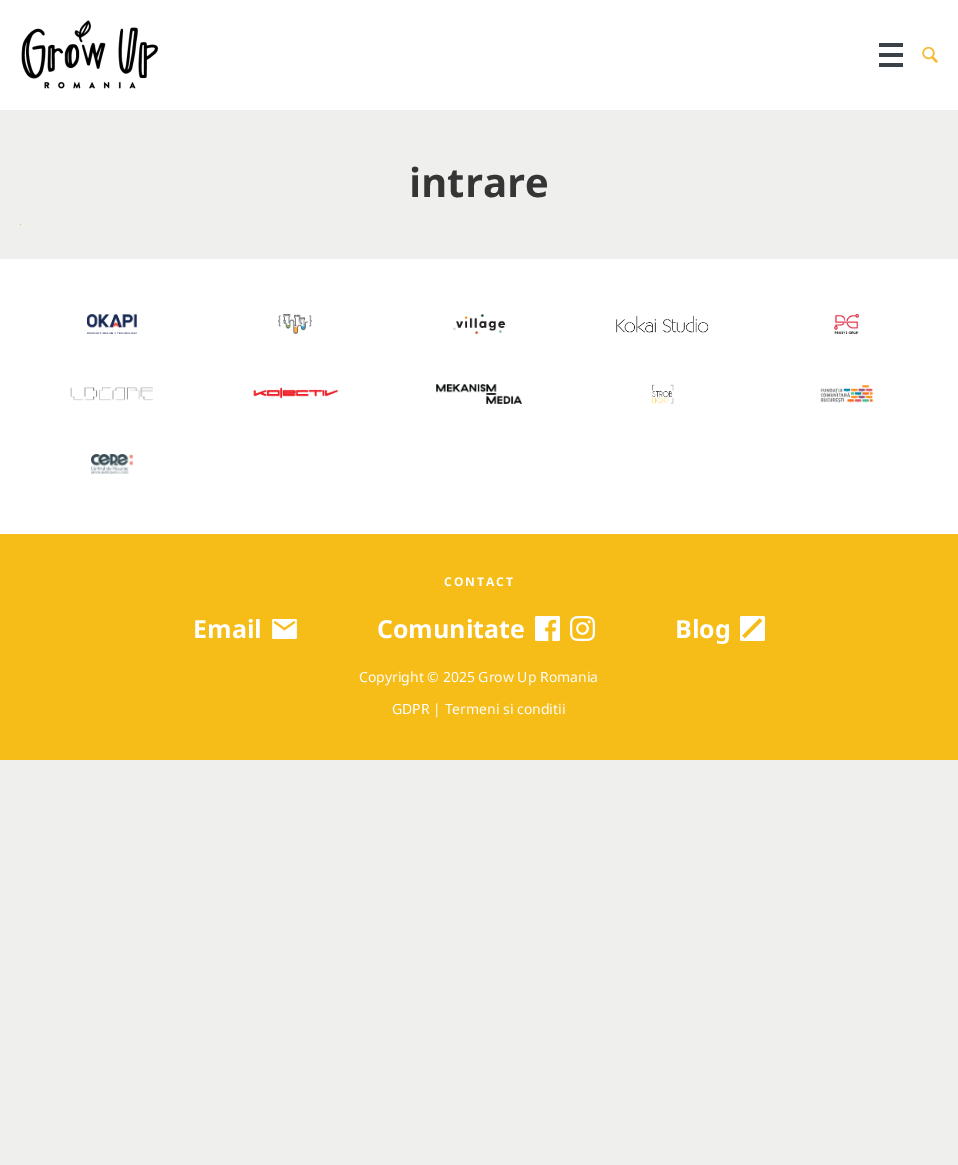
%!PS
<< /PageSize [958 1165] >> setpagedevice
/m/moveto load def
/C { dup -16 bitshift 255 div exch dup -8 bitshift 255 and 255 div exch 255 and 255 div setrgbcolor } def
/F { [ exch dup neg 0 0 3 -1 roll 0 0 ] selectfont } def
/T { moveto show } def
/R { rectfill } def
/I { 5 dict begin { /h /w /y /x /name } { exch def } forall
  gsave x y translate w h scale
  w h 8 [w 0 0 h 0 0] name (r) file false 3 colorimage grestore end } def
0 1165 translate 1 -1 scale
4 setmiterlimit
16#EFEFED C
0 0 958 1165 R
16#FFFFFF C
0 0 958 110 R
(1.rgb) 21 20 138 69 I
16#3A4247 C
879 43 24 4 R
879 53 24 4 R
879 63 24 4 R
(2.rgb) 922 47 16 16 I
/NotoSans-Bold 40 F
16#353535 C
(intrare) 409 197 T
16#E9BF3B C
20 224 1 1 R
16#F6BC17 C
0 534 958 226 R
16#FFFFFF C
0 259 958 275 R
(3.rgb) 87 314 50 20 I
(4.rgb) 278 314 34 20 I
(5.rgb) 453 314 52 20 I
(6.rgb) 616 315 93 18 I
(7.rgb) 834 314 25 20 I
(8.rgb) 70 387 83 14 I
(9.rgb) 253 387 86 12 I
(10.rgb) 436 384 86 20 I
(11.rgb) 652 384 22 20 I
(12.rgb) 820 384 54 19 I
(13.rgb) 91 454 42 20 I
/NotoSans-Bold 12 F
444 586 m 2 0 (CONTACT) ashow
/NotoSans-Bold 25 F
(Email) 193 638 T
(14.rgb) 272 619 25 20 I
(Comunitate) 377 638 T
(15.rgb) 535 616 25 25 I
(16.rgb) 570 616 25 25 I
(Blog) 675 638 T
(17.rgb) 740 616 25 25 I
/NotoSans-Regular 14 F
(Copyright © 2025 Grow Up Romania) 359 682 T
(GDPR | Termeni si conditii) 392 714 T
showpage
